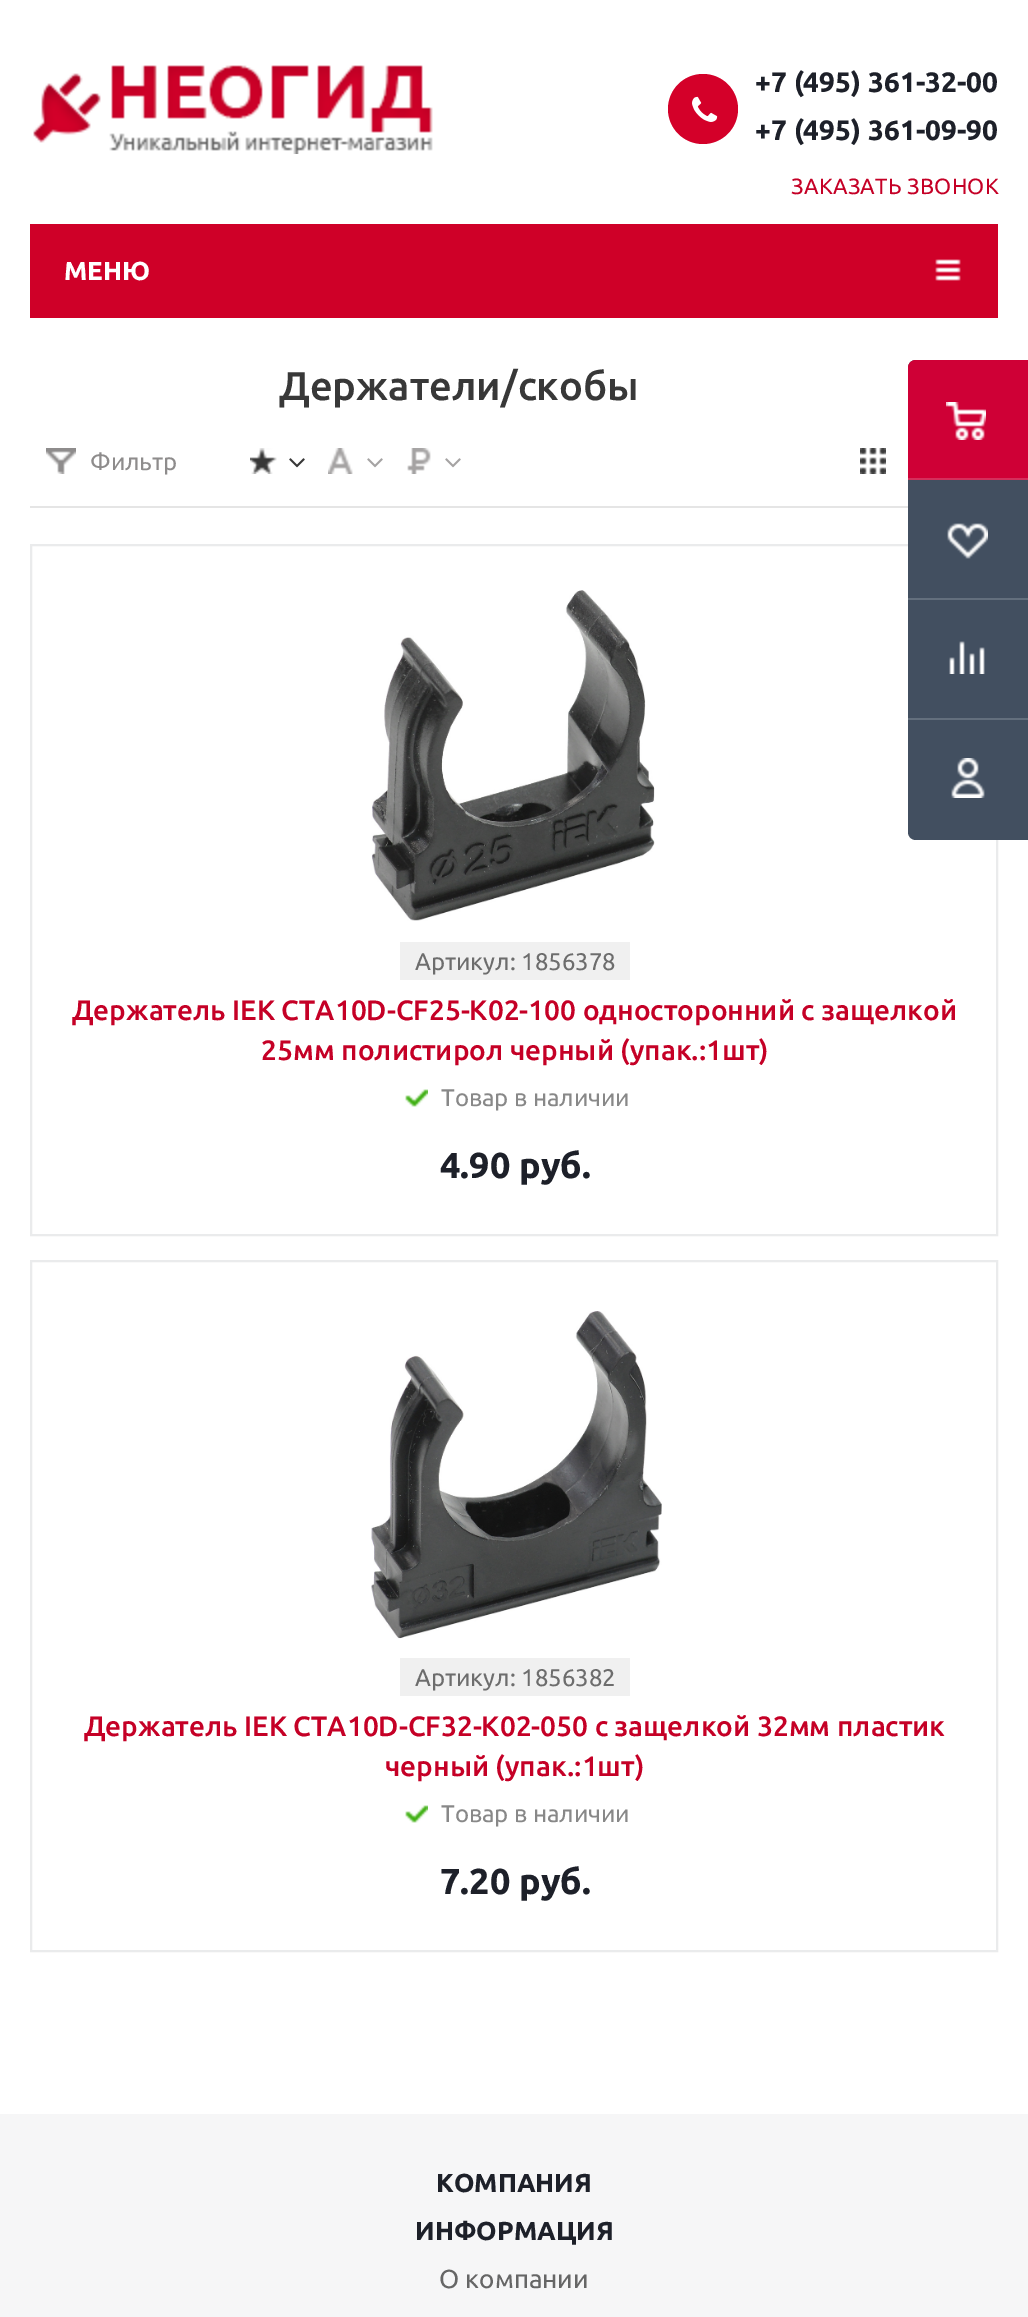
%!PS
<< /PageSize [1028 2317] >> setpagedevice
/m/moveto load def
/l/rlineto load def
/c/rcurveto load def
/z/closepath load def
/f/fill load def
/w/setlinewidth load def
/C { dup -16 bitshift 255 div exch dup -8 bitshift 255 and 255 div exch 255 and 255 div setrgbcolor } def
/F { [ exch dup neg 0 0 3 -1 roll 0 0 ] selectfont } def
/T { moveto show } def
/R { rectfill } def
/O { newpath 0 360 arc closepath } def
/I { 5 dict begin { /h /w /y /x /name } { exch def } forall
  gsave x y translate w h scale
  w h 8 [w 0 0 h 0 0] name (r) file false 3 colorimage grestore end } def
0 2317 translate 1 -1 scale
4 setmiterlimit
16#F6F6F7 C
0 0 1028 2317 R
16#FFFFFF C
0 0 1028 2114 R
(1.rgb) 33 65 400 89 I
16#D40029 C
703 109 35 O f
(2.rgb) 692 96 26 26 I
/Ubuntu-Bold 28 F
16#1D2029 C
(+7 \(495\) 361-32-00) 755 92 T
(+7 \(495\) 361-09-90) 755 140 T
/Ubuntu-Regular 22 F
16#C50026 C
791 194 m .25 0 (ЗАКАЗАТЬ ЗВОНОК) ashow
16#EAEBEC C
2 w
31 545 966 690 rectstroke
16#424F60 C
916 360 m 112 0 l 0 480 l -112 0 l -4.5 0 -8 -3.5 -8 -8 c 0 -464 l 0 -4.5 3.5 -8 8 -8 c z f
16#CF0036 C
916 360 m 112 0 l 0 120 l -120 0 l 0 -112 l 0 -4.5 3.5 -8 8 -8 c z f
(3.rgb) 946 402 40 38 I
16#D42F5C C
908 478 120 2 R
(4.rgb) 947 523 41 36 I
16#636F7D C
908 598 120 2 R
(5.rgb) 949 641 36 33 I
908 718 120 2 R
(6.rgb) 951 758 34 40 I
16#CF0028 C
30 224 968 94 R
/Ubuntu-Bold 26 F
16#FFFFFF C
(МЕНЮ) 64 280 T
(7.rgb) 935 259 26 22 I
/Ubuntu-Medium 40 F
16#383838 C
(Держатели/скобы) 279 400 T
16#E5E5E5 C
30 506 878 2 R
(8.rgb) 250 448 27 26 I
(9.rgb) 289 458 16 10 I
(10.rgb) 328 448 25 26 I
(11.rgb) 367 458 16 10 I
(12.rgb) 407 448 24 26 I
(11.rgb) 445 458 16 10 I
(13.rgb) 860 448 26 26 I
(14.rgb) 46 448 30 26 I
/Ubuntu-Regular 24 F
16#8E8C8C C
(Фильтр) 90 470 T
(15.rgb) 371 590 284 331 I
16#F0F0F0 C
400 942 230 38 R
16#6D6D6D C
(Артикул: 1856378) 415 970 T
/Ubuntu-Medium 28 F
16#C50026 C
(Держатель IEK CTA10D-CF25-K02-100 односторонний с защелкой) 72 1020 T
(25мм полистирол черный \(упак.:1шт\)) 261 1060 T
(16.rgb) 405 1089 23 18 I
/Ubuntu-Regular 24 F
16#888888 C
(Товар в наличии) 441 1106 T
/Ubuntu-Bold 36 F
16#1D2029 C
(4.90 руб.) 440 1178 T
16#EAEBEC C
31 1261 966 690 rectstroke
(17.rgb) 371 1311 291 328 I
16#F0F0F0 C
400 1658 230 38 R
/Ubuntu-Regular 24 F
16#6D6D6D C
(Артикул: 1856382) 415 1686 T
/Ubuntu-Medium 28 F
16#C50026 C
(Держатель IEK CTA10D-CF32-K02-050 с защелкой 32мм пластик) 84 1736 T
(черный \(упак.:1шт\)) 385 1776 T
(16.rgb) 405 1805 23 18 I
/Ubuntu-Regular 24 F
16#888888 C
(Товар в наличии) 441 1822 T
/Ubuntu-Bold 36 F
16#1D2029 C
(7.20 руб.) 440 1894 T
/Ubuntu-Bold 26 F
(КОМПАНИЯ) 436 2192 T
(ИНФОРМАЦИЯ) 415 2240 T
/Ubuntu-Regular 26 F
16#666666 C
(О компании) 439 2288 T
showpage
